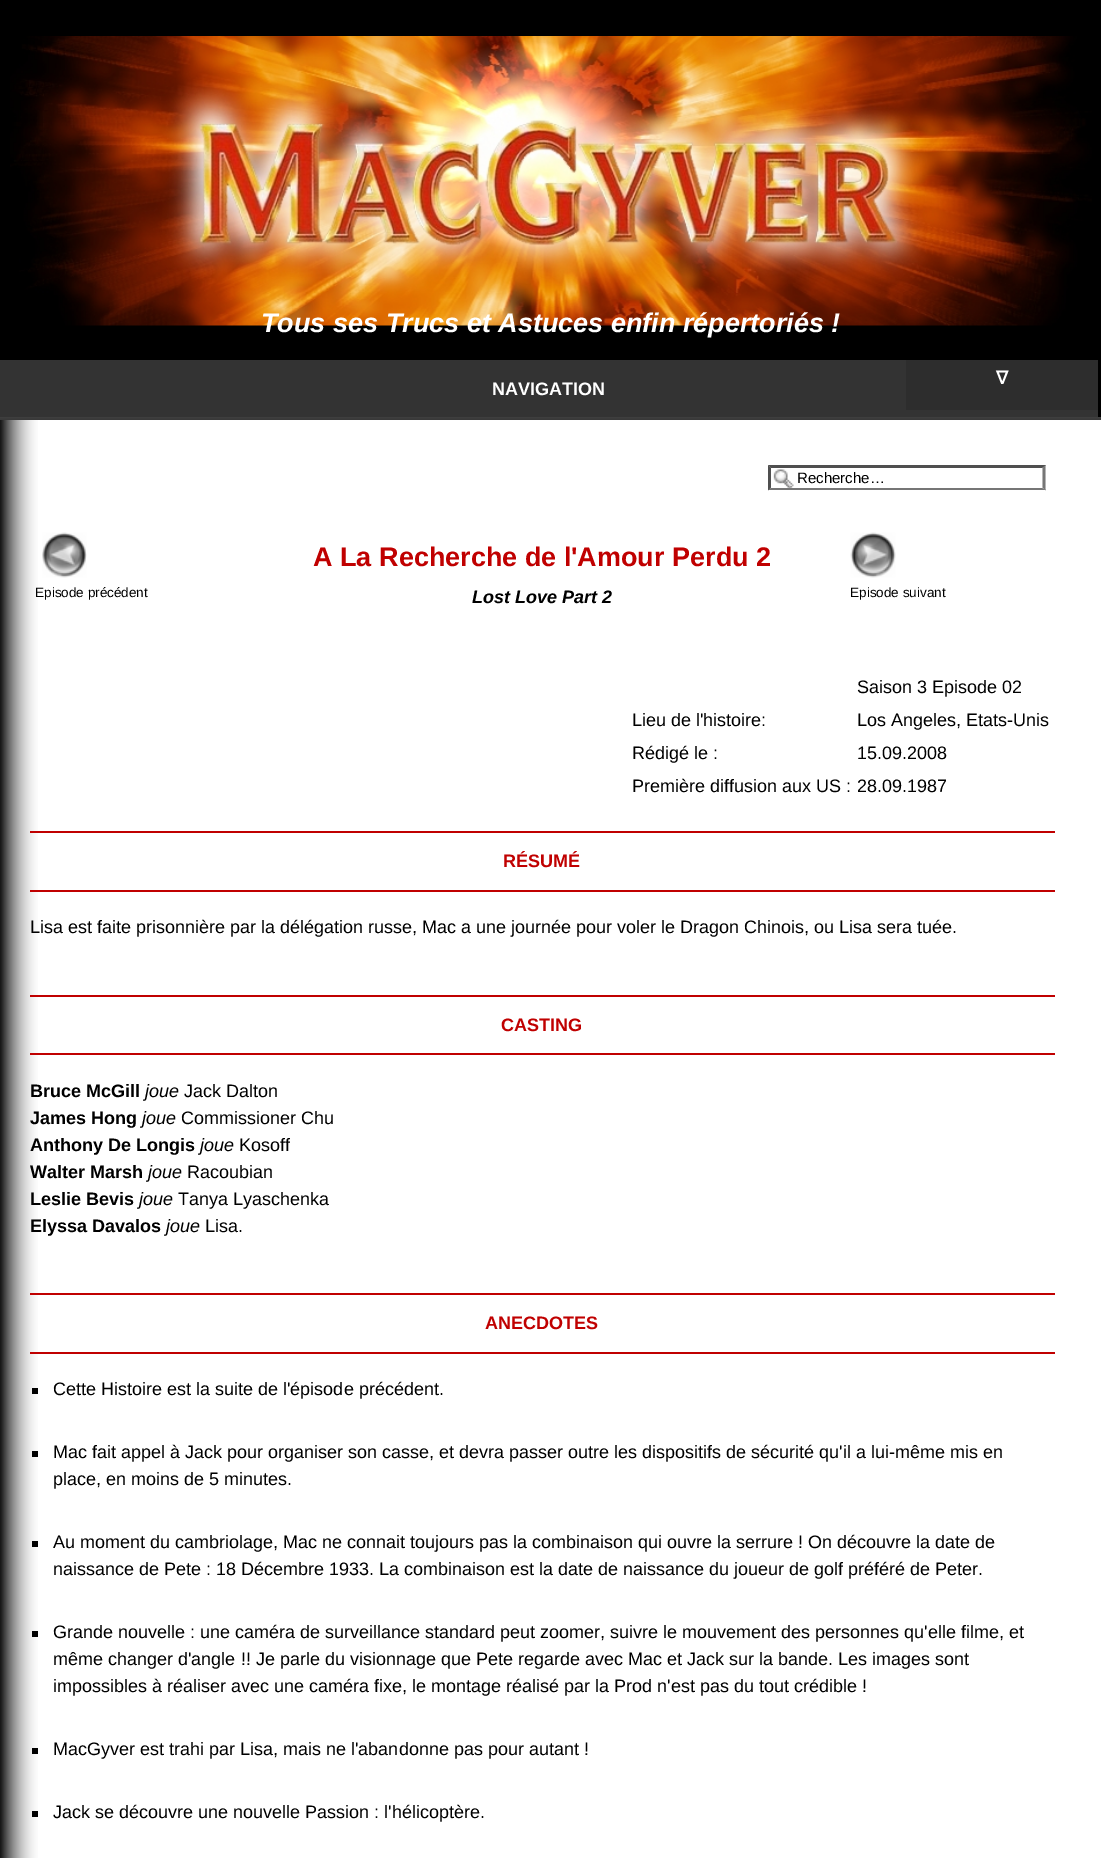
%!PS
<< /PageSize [1101 1858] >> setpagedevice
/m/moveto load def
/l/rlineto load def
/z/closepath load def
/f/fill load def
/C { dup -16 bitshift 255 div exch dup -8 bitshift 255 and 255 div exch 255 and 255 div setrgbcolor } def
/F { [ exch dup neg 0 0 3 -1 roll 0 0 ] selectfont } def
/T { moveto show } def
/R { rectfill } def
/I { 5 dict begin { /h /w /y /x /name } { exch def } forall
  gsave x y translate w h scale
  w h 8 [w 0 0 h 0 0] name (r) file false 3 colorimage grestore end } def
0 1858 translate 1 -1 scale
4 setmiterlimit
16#000000 C
0 0 1101 1858 R
(1.rgb) 10 36 1082 290 I
/LiberationSans-BoldItalic 27 F
16#FFFFFF C
(Tous ses Trucs et Astuces enfin répertoriés !) 261 332 T
(2.rgb) 0 417 1101 3 I
16#333333 C
0 360 1098 57 R
16#2D2D2D C
906 360 192 50 R
/DejaVuSans-Bold 18 F
16#FFFFFF C
(∇) 996 384 T
/LiberationSans-Bold 18 F
(NAVIGATION) 492 395 T
1 420 1100 1438 R
(3.rgb) 0 420 38 1438 I
(4.rgb) 773 469 21 19 I
16#4F4F4F C
768 465 m 278 0 l -4 3 l -271 0 l z f
16#767676 C
1045.5 465 m 0 25.5 l -3 -3 l 0 -19.5 l z f
1046 490 m -278 0 l 3 -2 l 271 0 l z f
16#4F4F4F C
768 490.5 m 0 -25.5 l 3 3 l 0 19.5 l z f
/LiberationSans-Regular 15 F
16#000000 C
(Recherche…) 797 483 T
(5.rgb) 42 532 45 46 I
/LiberationSans-Bold 27 F
16#C00000 C
(A La Recherche de l'Amour Perdu 2) 313 566 T
(6.rgb) 850 532 46 46 I
/LiberationSans-Regular 13.5 F
16#000000 C
(Episode précédent) 35 597 T
/LiberationSans-BoldItalic 18 F
(Lost Love Part 2) 472 603 T
/LiberationSans-Regular 13.5 F
(Episode suivant) 850 597 T
/LiberationSans-Regular 18 F
(Saison 3 Episode 02) 857 693 T
(Lieu de l'histoire:) 632 726 T
(Los Angeles, Etats-Unis) 857 726 T
(Rédigé le :) 632 759 T
(15.09.2008) 857 759 T
(Première diffusion aux US :) 632 792 T
(28.09.1987) 857 792 T
16#C00000 C
30 831 1025 2 R
30 890 1025 2 R
/LiberationSans-Bold 18 F
(RÉSUMÉ) 503 867 T
/LiberationSans-Regular 18 F
16#000000 C
(Lisa est faite prisonnière par la délégation russe, Mac a une journée pour voler le Dragon Chinois, ou Lisa sera tuée.) 30 933 T
16#C00000 C
30 995 1025 2 R
30 1053 1025 2 R
/LiberationSans-Bold 18 F
(CASTING) 501 1031 T
16#000000 C
(Bruce McGill) 30 1097 T
/LiberationSans-Italic 18 F
(joue) 145 1097 T
/LiberationSans-Regular 18 F
(Jack Dalton) 184 1097 T
/LiberationSans-Bold 18 F
(James Hong) 30 1124 T
/LiberationSans-Italic 18 F
(joue) 142 1124 T
/LiberationSans-Regular 18 F
(Commissioner Chu) 181 1124 T
/LiberationSans-Bold 18 F
(Anthony De Longis) 30 1151 T
/LiberationSans-Italic 18 F
(joue) 200 1151 T
/LiberationSans-Regular 18 F
(Kosoff) 239 1151 T
/LiberationSans-Bold 18 F
(Walter Marsh) 30 1178 T
/LiberationSans-Italic 18 F
(joue) 148 1178 T
/LiberationSans-Regular 18 F
(Racoubian) 187 1178 T
/LiberationSans-Bold 18 F
(Leslie Bevis) 30 1205 T
/LiberationSans-Italic 18 F
(joue) 139 1205 T
/LiberationSans-Regular 18 F
(Tanya Lyaschenka) 178 1205 T
/LiberationSans-Bold 18 F
(Elyssa Davalos) 30 1232 T
/LiberationSans-Italic 18 F
(joue) 166 1232 T
/LiberationSans-Regular 18 F
(Lisa.) 205 1232 T
16#C00000 C
30 1293 1025 2 R
30 1352 1025 2 R
/LiberationSans-Bold 18 F
(ANECDOTES) 485 1329 T
16#000000 C
32 1388 6 6 R
/LiberationSans-Regular 18 F
(Cette Histoire est la suite de l'épisode précédent.) 53 1395 T
32 1451 6 6 R
(Mac fait appel à Jack pour organiser son casse, et devra passer outre les dispositifs de sécurité qu'il a lui-même mis en) 53 1458 T
(place, en moins de 5 minutes.) 53 1485 T
32 1541 6 6 R
(Au moment du cambriolage, Mac ne connait toujours pas la combinaison qui ouvre la serrure ! On découvre la date de) 53 1548 T
(naissance de Pete : 18 Décembre 1933. La combinaison est la date de naissance du joueur de golf préféré de Peter.) 53 1575 T
32 1631 6 6 R
(Grande nouvelle : une caméra de surveillance standard peut zoomer, suivre le mouvement des personnes qu'elle filme, et) 53 1638 T
(même changer d'angle !! Je parle du visionnage que Pete regarde avec Mac et Jack sur la bande. Les images sont) 53 1665 T
(impossibles à réaliser avec une caméra fixe, le montage réalisé par la Prod n'est pas du tout crédible !) 53 1692 T
32 1748 6 6 R
(MacGyver est trahi par Lisa, mais ne l'abandonne pas pour autant !) 53 1755 T
32 1811 6 6 R
(Jack se découvre une nouvelle Passion : l'hélicoptère.) 53 1818 T
showpage
